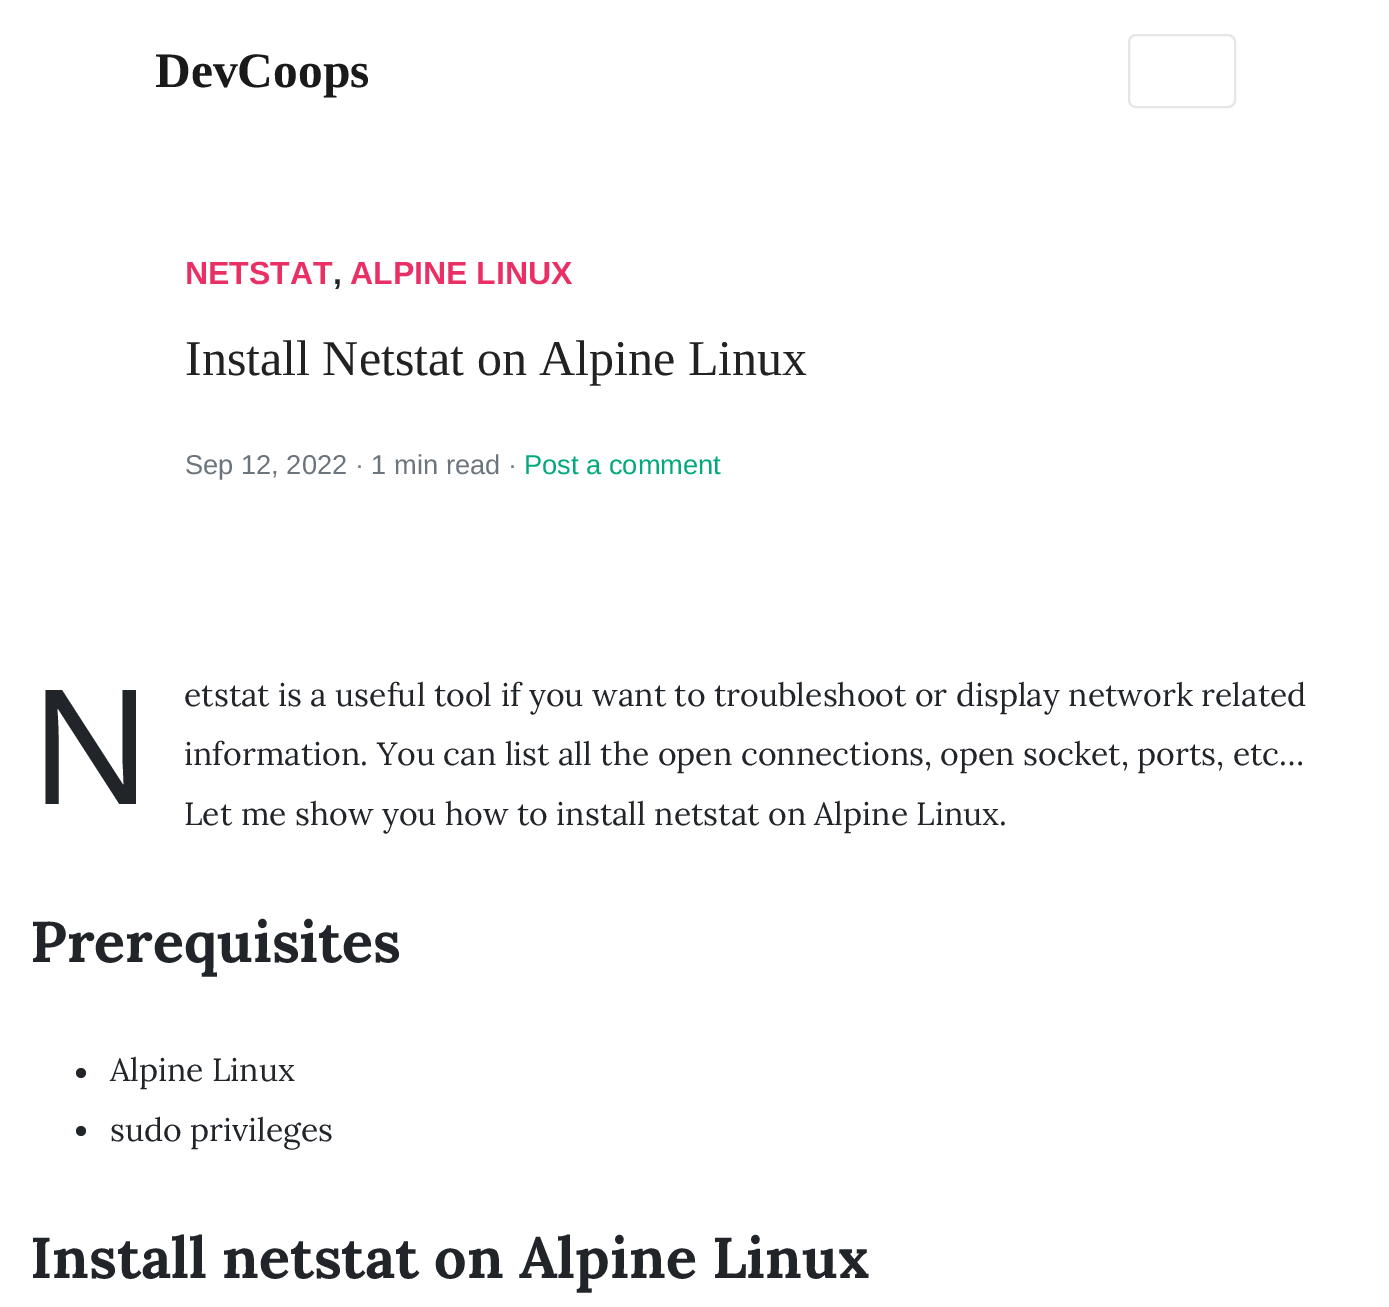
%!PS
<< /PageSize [1389 1307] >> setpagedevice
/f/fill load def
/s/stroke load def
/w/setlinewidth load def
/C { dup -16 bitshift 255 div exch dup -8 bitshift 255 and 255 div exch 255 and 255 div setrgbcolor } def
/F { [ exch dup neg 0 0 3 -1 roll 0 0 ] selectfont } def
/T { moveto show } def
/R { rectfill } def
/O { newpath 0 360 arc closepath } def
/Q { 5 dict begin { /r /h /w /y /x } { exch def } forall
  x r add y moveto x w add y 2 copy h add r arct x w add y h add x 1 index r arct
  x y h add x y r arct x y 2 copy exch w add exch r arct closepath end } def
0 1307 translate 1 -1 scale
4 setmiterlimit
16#FFFFFF C
0 0 1389 1307 R
/LiberationSerif-Bold 49.5 F
16#1A1A1A C
(DevCoops) 155 87 T
16#E6E6E6 C
2 w
1129 35 106 72 7 Q s
/LiberationSans-Bold 32 F
16#EA2F65 C
(NETSTAT) 185 284 T
16#212529 C
(,) 333 284 T
16#EA2F65 C
(ALPINE LINUX) 350 284 T
/LiberationSerif-Regular 50 F
16#222222 C
(Install Netstat on Alpine Linux) 185 375 T
/LiberationSans-Regular 27.25 F
16#6C757D C
(Sep 12, 2022 · 1 min read ·) 185 474 T
16#03A87C C
(Post a comment) 524 474 T
/NotoSans-Regular 160 F
16#212529 C
(N) 30 804 T
/Lora-Regular 32 F
(etstat is a useful tool if you want to troubleshoot or display network related) 184 706 T
(information. You can list all the open connections, open socket, ports, etc…) 184 765 T
(Let me show you how to install netstat on Alpine Linux.) 184 825 T
/Lora-Bold 57.6 F
(Prerequisites) 30 962 T
81 1073 5 O f
/Lora-Regular 32 F
(Alpine Linux) 110 1081 T
81 1131 5 O f
(sudo privileges) 110 1141 T
/Lora-Bold 57.6 F
(Install netstat on Alpine Linux) 30 1278 T
showpage
